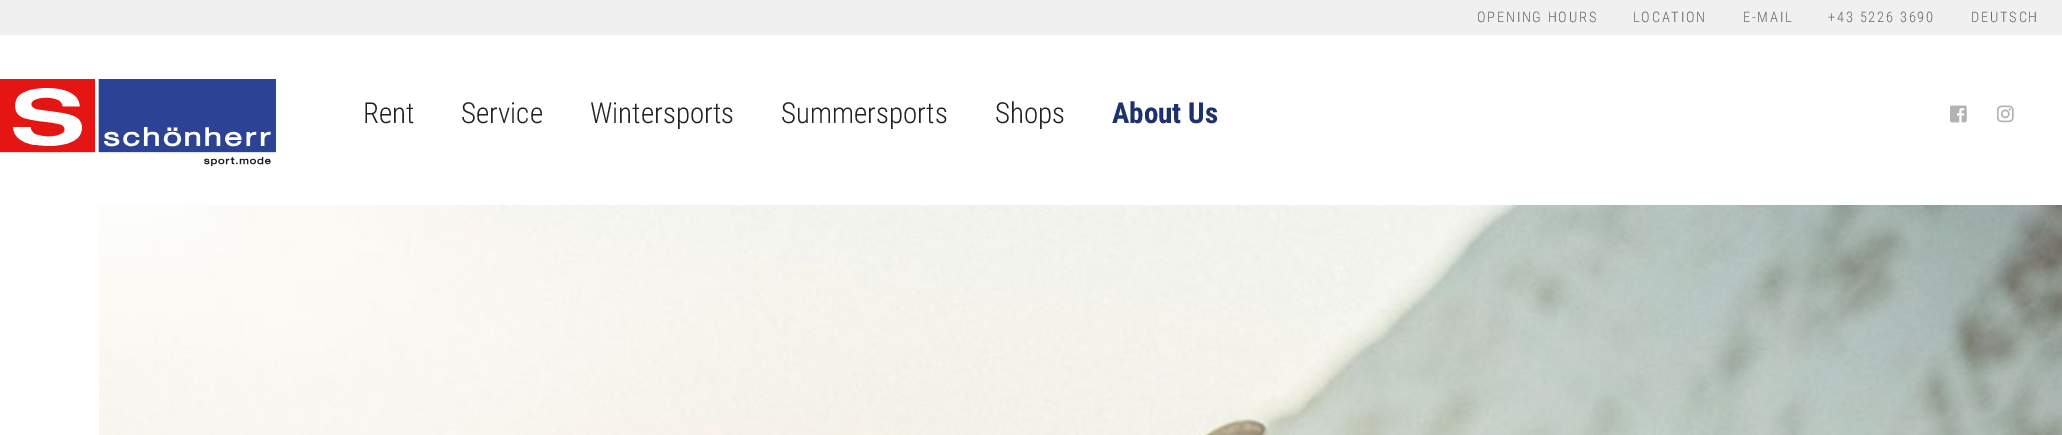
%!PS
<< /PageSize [2062 435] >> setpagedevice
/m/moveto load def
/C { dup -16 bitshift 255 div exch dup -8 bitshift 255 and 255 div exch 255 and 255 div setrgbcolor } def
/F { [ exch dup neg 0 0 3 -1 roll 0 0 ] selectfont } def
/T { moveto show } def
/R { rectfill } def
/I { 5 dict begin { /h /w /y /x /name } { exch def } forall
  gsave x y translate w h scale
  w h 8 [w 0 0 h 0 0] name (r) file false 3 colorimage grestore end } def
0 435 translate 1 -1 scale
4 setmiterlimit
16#FFFFFF C
0 0 2062 435 R
16#F0F0F0 C
0 0 2062 35 R
/RobotoCondensed-Light 14.5 F
16#666666 C
1477 22 m 1.75 0 (OPENING HOURS) ashow
1633 22 m 1.75 0 (LOCATION) ashow
1743 22 m 1.75 0 (E-MAIL) ashow
1828 22 m 1.75 0 (+43 5226 3690) ashow
1971 22 m 1.75 0 (DEUTSCH) ashow
(1.rgb) 0 79 276 87 I
/RobotoCondensed-Light 29 F
16#222222 C
(Rent) 363 123 T
(Service) 461 123 T
(Wintersports) 590 123 T
(Summersports) 781 123 T
(Shops) 995 123 T
/RobotoCondensed-Bold 29 F
16#1C316D C
(About Us) 1112 123 T
(2.rgb) 1950 105 17 18 I
(3.rgb) 1997 105 17 18 I
(4.rgb) 99 205 1963 230 I
showpage
